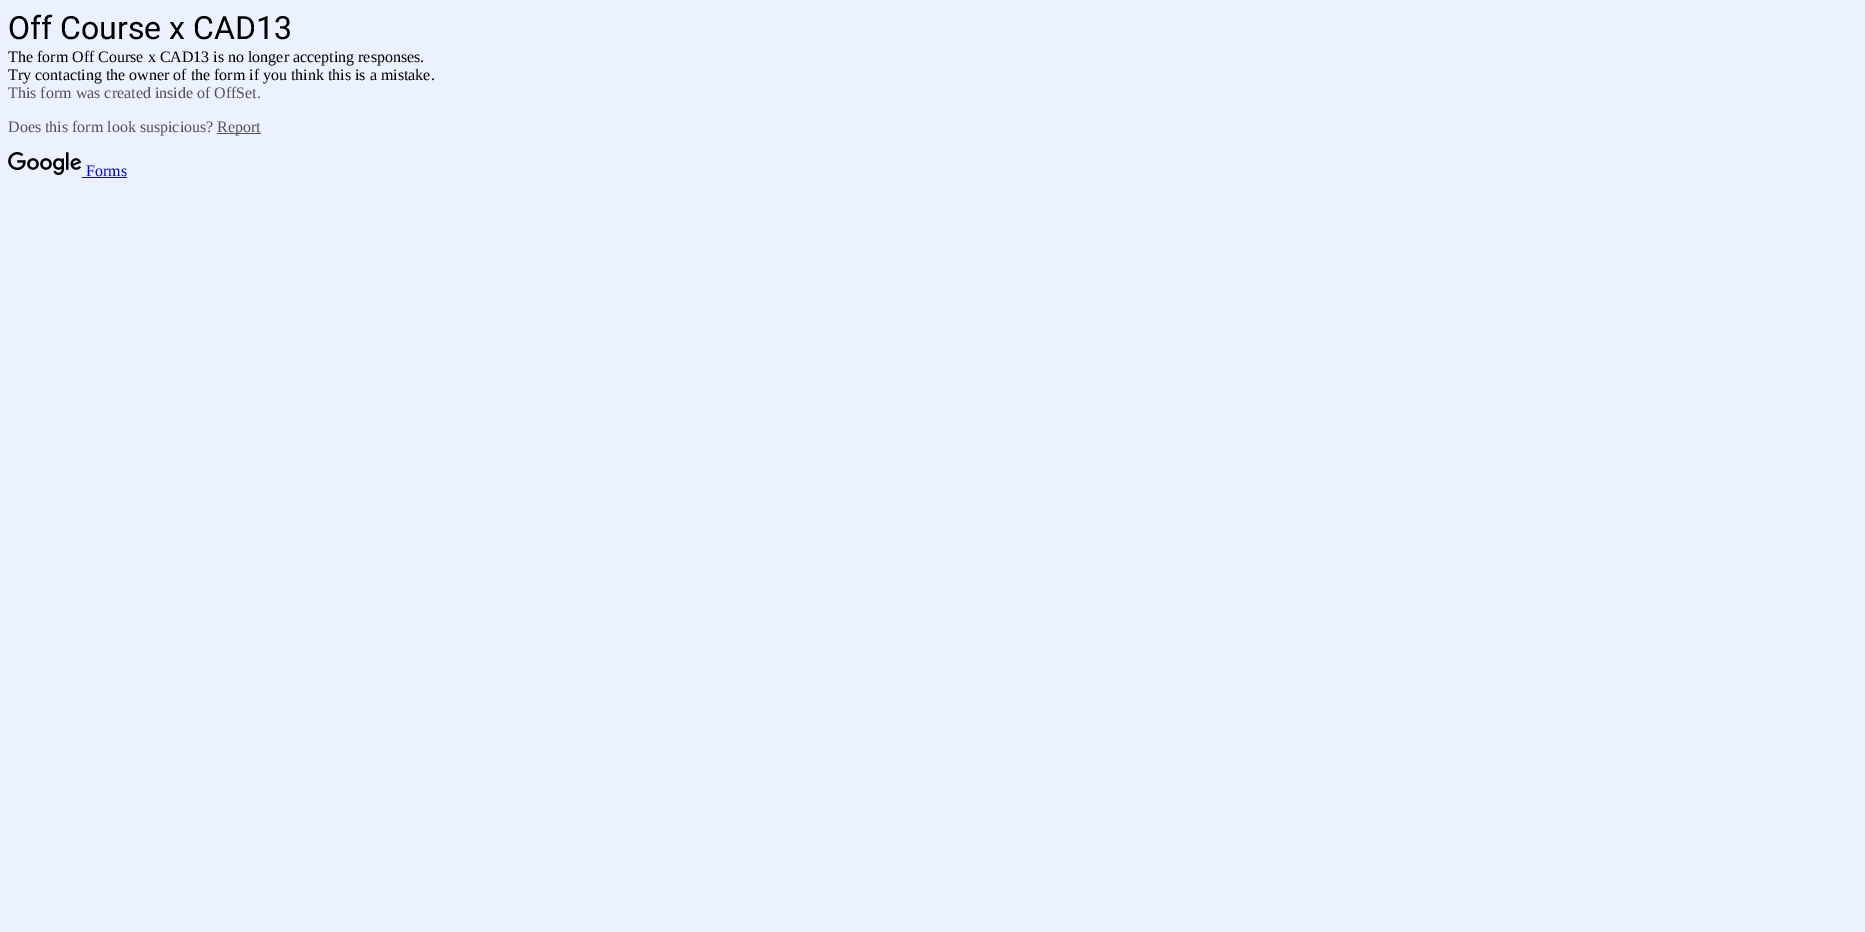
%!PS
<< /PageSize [1865 932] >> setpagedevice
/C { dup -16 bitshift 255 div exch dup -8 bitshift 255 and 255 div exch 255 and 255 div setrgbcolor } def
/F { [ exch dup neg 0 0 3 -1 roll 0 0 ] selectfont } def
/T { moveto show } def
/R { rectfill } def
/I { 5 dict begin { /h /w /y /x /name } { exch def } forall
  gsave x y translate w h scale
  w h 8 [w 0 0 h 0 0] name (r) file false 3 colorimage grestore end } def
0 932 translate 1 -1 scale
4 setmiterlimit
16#EBF1FE C
0 0 1865 932 R
/Roboto-Regular 32 F
16#000000 C
(Off Course x CAD13) 8 39 T
/LiberationSerif-Regular 16 F
(The form Off Course x CAD13 is no longer accepting responses.) 8 62 T
(Try contacting the owner of the form if you think this is a mistake.) 8 80 T
16#505256 C
(This form was created inside of OffSet.) 8 98 T
(Does this form look suspicious?) 8 132 T
217 133 44 1 R
(Report) 217 132 T
(1.rgb) 8 152 74 23 I
16#0000EE C
(Forms) 86 176 T
82 177 45 1 R
showpage
